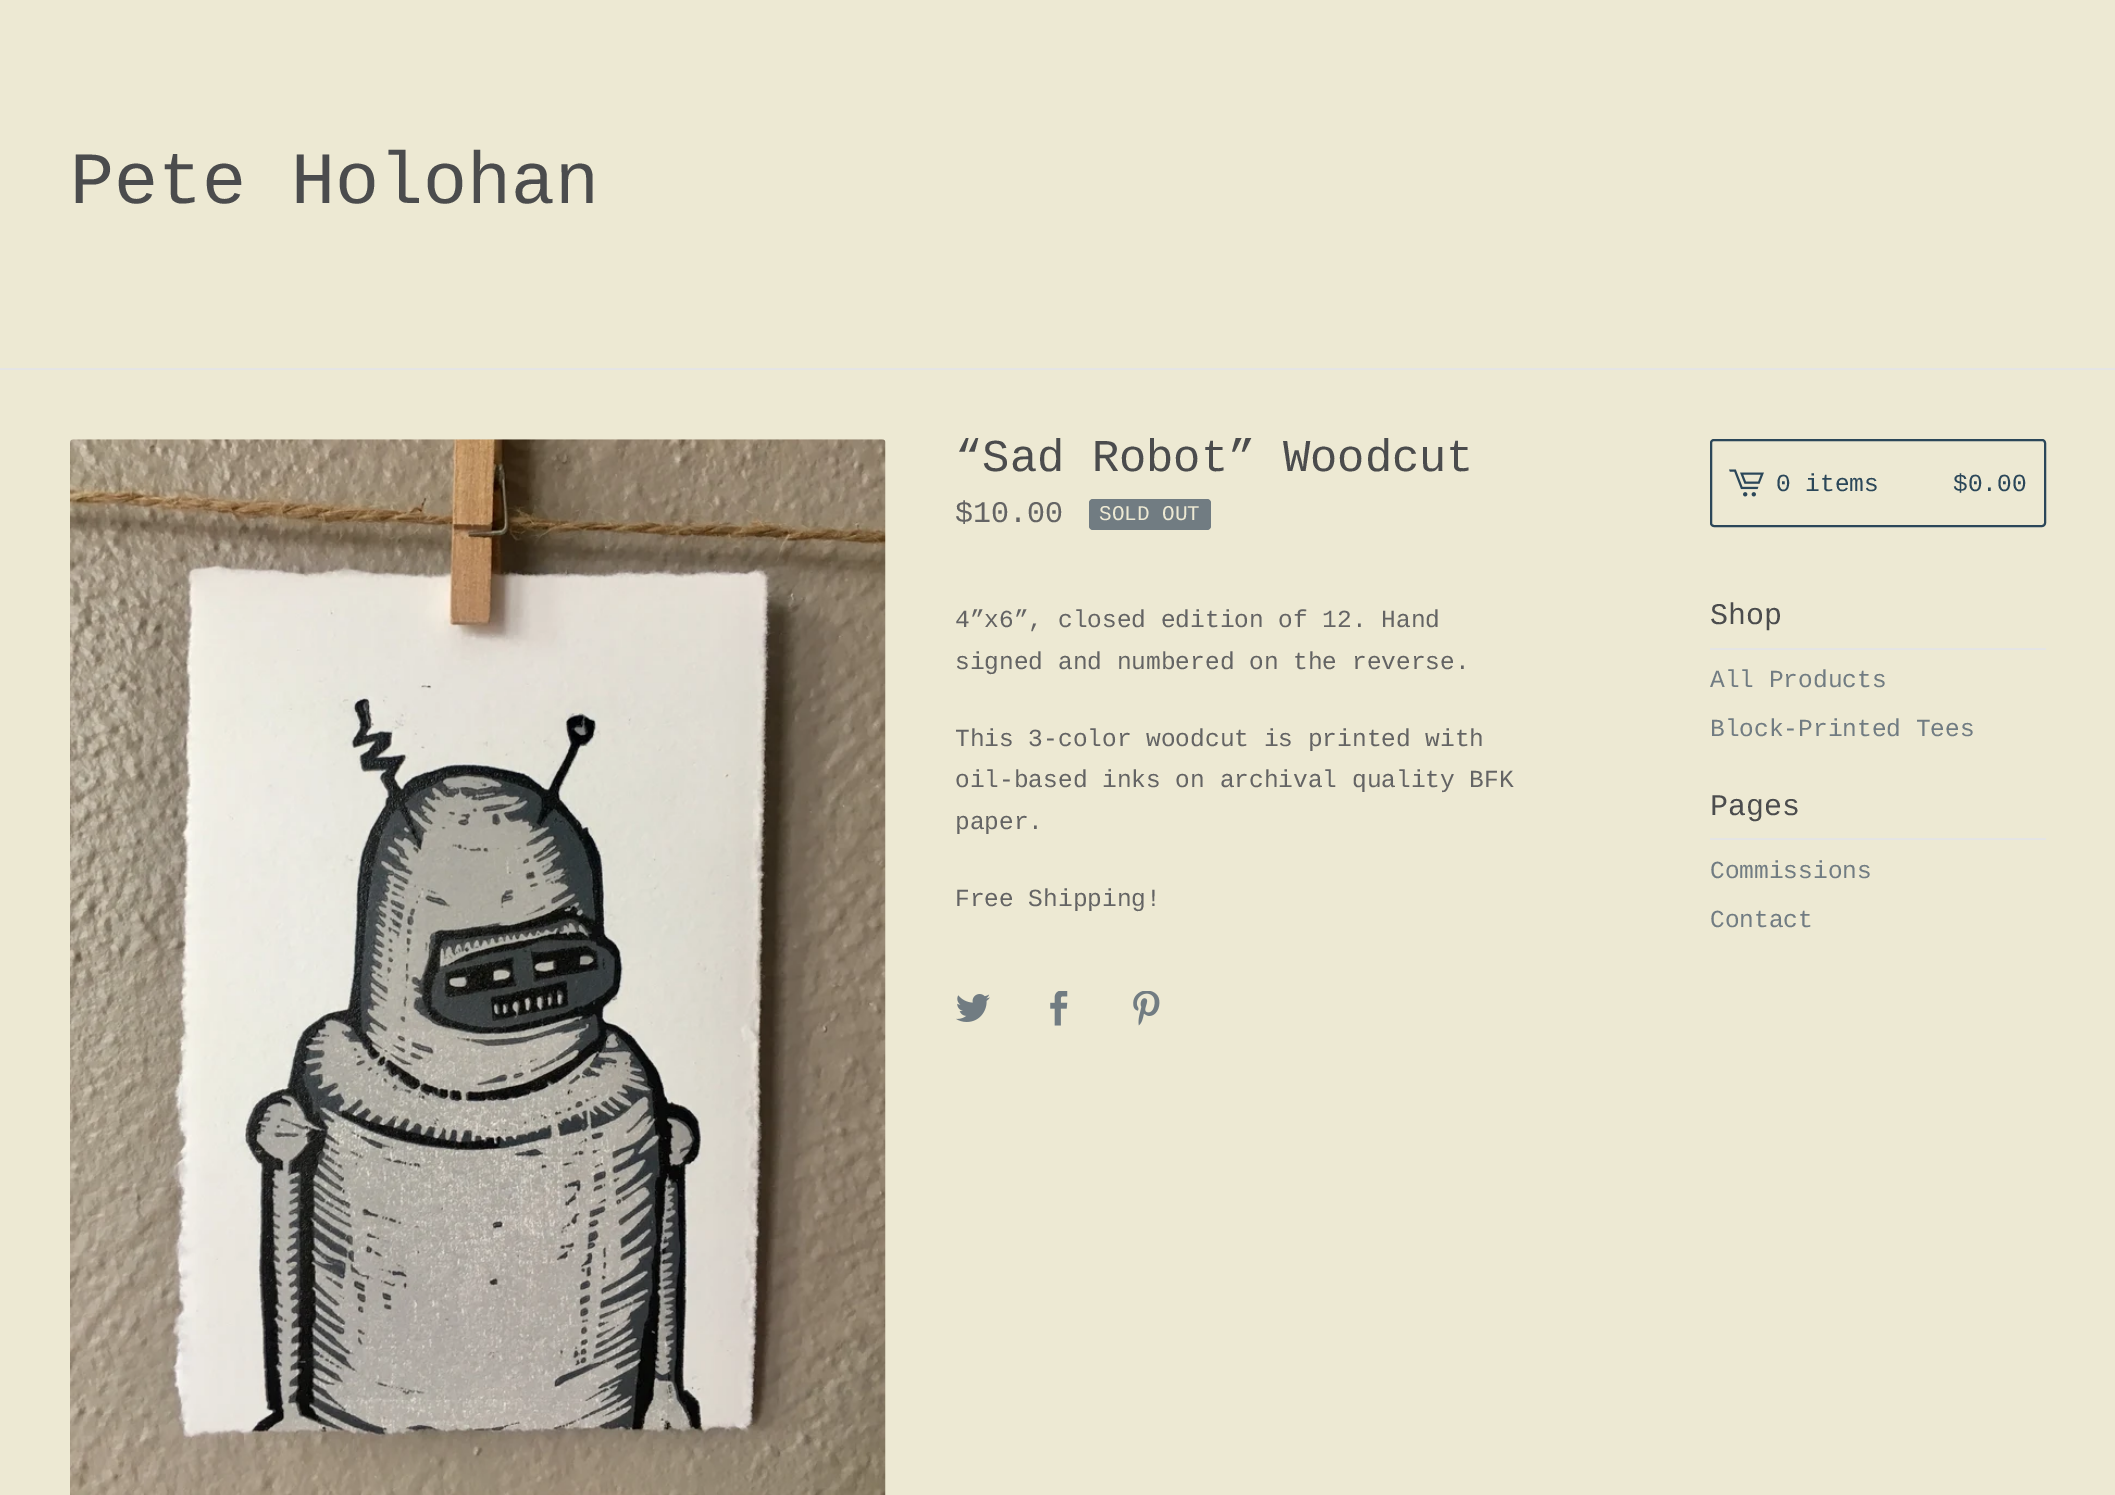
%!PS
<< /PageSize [2115 1495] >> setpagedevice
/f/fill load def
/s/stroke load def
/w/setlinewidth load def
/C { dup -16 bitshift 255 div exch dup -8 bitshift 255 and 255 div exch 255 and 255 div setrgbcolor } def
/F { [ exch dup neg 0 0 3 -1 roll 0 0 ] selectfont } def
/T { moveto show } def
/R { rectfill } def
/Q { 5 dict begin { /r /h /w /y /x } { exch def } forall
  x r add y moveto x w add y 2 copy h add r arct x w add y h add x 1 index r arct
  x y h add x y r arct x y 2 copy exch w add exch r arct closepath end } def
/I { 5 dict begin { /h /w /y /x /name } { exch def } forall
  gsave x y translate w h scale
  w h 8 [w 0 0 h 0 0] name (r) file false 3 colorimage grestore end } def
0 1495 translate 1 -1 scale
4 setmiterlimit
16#EDE9D3 C
0 0 2115 1495 R
16#E5E5E5 C
0 368 2115 2 R
/LiberationMono-Regular 73.5 F
16#4B4C4D C
(Pete Holohan) 70 203 T
(1.rgb) 70 439 816 1056 I
/LiberationMono-Regular 45.5 F
(“Sad Robot” Woodcut) 955 471 T
/LiberationMono-Regular 30 F
16#646464 C
($10.00) 955 522 T
16#717C82 C
1089 499 122 31 4 Q f
/LiberationMono-Regular 21 F
16#EDE9D3 C
(SOLD OUT) 1099 520 T
/LiberationMono-Regular 24.5 F
16#646464 C
(4”x6”, closed edition of 12. Hand) 955 627 T
(signed and numbered on the reverse.) 955 669 T
(This 3-color woodcut is printed with) 955 746 T
(oil-based inks on archival quality BFK) 955 787 T
(paper.) 955 829 T
(Free Shipping!) 955 906 T
(2.rgb) 956 994 34 28 I
(3.rgb) 1050 991 18 35 I
(4.rgb) 1133 991 27 35 I
16#2B4759 C
2 w
1711 440 334 86 3 Q s
(5.rgb) 1729 469 35 28 I
(0 items) 1776 491 T
($0.00) 1953 491 T
16#E5E5E5 C
1710 648 336 2 R
/LiberationMono-Regular 30 F
16#4B4C4D C
(Shop) 1710 624 T
/LiberationMono-Regular 24.5 F
16#717C82 C
(All Products) 1710 687 T
(Block-Printed Tees) 1710 736 T
16#E5E5E5 C
1710 838 336 2 R
/LiberationMono-Regular 30 F
16#4B4C4D C
(Pages) 1710 815 T
/LiberationMono-Regular 24.5 F
16#717C82 C
(Commissions) 1710 878 T
(Contact) 1710 927 T
showpage
